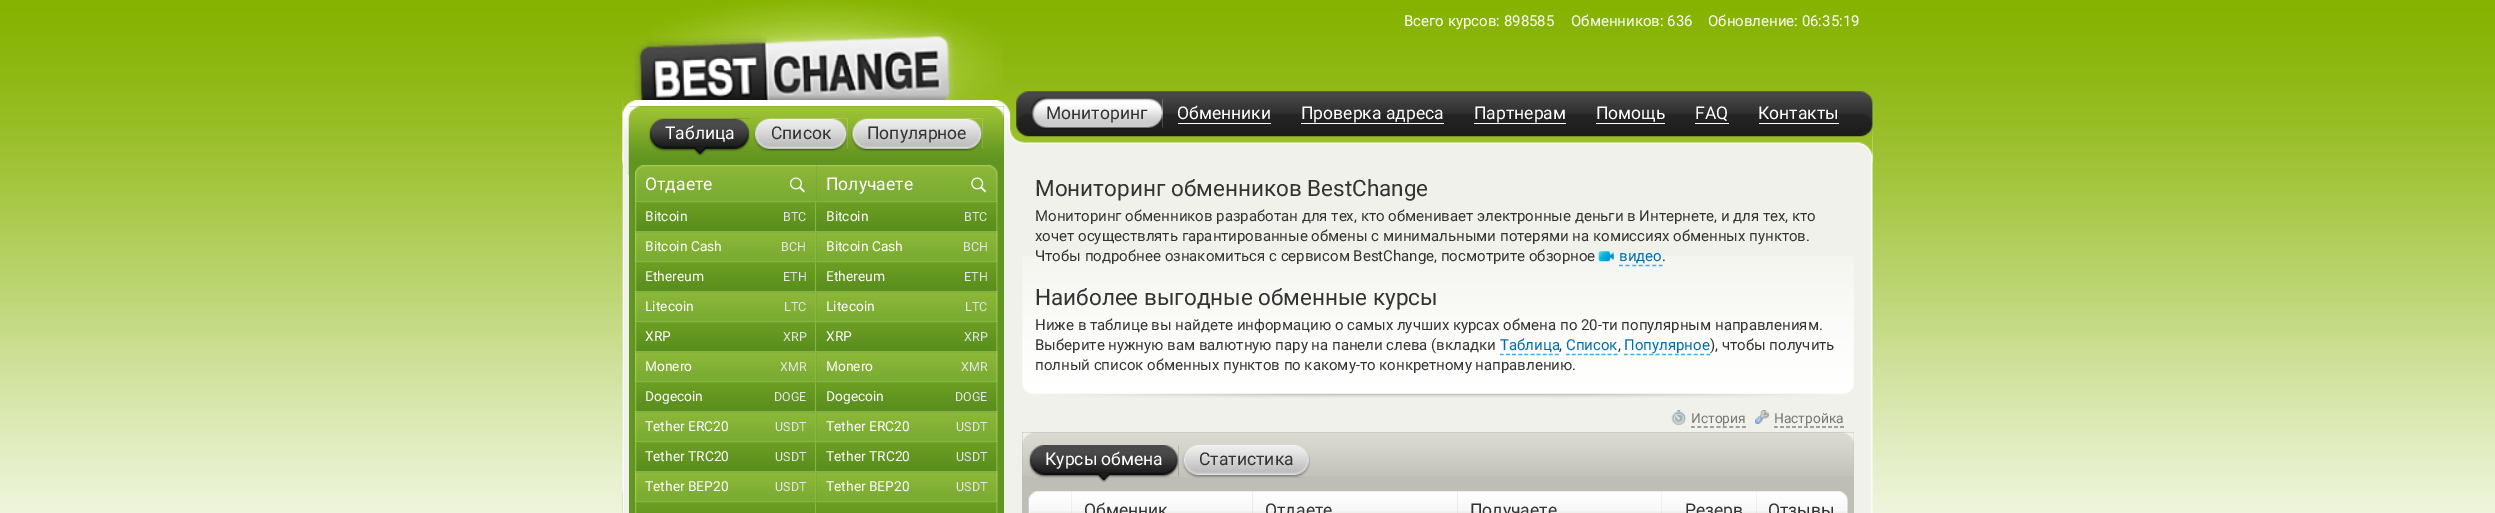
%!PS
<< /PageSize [2495 513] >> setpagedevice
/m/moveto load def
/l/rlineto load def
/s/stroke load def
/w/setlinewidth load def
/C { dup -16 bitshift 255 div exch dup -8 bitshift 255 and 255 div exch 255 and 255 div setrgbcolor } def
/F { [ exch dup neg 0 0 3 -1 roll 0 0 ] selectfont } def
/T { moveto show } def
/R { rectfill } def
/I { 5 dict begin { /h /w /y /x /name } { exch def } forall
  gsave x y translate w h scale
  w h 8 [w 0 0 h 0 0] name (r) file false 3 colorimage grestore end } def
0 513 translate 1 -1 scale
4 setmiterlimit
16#FFFFFF C
0 0 2495 513 R
(1.rgb) 0 0 2495 513 I
(2.rgb) 631 0 372 100 I
/Roboto-Regular 15 F
(Всего курсов: 898585) 1404 26 T
(Обменников: 636) 1571 26 T
(Обновление: 06:35:19) 1708 26 T
(6.rgb) 622 100 1251 413 I
(7.rgb) 622 100 1251 63 I
(3.rgb) 1016 91 857 46 I
(4.rgb) 1031 97 132 32 I
(5.rgb) 1148 97 15 32 I
/Roboto-Regular 17.5 F
16#333333 C
(Мониторинг) 1046 119 T
16#FFFFFF C
1178 123 93 1 R
(Обменники) 1177 119 T
1301 123 143 1 R
(Проверка адреса) 1301 119 T
1474 123 92 1 R
(Партнерам) 1474 119 T
1596 123 69 1 R
(Помощь) 1596 119 T
1695 123 34 1 R
(FAQ) 1695 119 T
1759 123 80 1 R
(Контакты) 1758 119 T
16#619420 C
629 106 375 407 R
(8.rgb) 628 106 376 69 I
(9.rgb) 648 118 102 34 I
(10.rgb) 734 118 16 33 I
16#FFFFFF C
(Таблица) 665 139 T
(11.rgb) 694 147 12 9 I
(12.rgb) 753 118 95 34 I
(13.rgb) 831 118 17 33 I
16#333333 C
(Список) 771 139 T
(14.rgb) 851 118 132 34 I
(15.rgb) 966 118 17 33 I
(Популярное) 867 139 T
(16.rgb) 635 165 182 38 I
(17.rgb) 790 177 15 16 I
16#FFFFFF C
(Отдаете) 645 190 T
(18.rgb) 816 165 182 38 I
(19.rgb) 971 177 16 16 I
(Получаете) 826 190 T
(20.rgb) 635 202 182 31 I
/Roboto-Regular 13.75 F
(Bitcoin) 645 221 T
/Roboto-Regular 12.5 F
16#E5E5E5 C
(BTC) 783 221 T
(21.rgb) 816 202 182 31 I
/Roboto-Regular 13.75 F
16#FFFFFF C
(Bitcoin) 826 221 T
/Roboto-Regular 12.5 F
16#E5E5E5 C
(BTC) 964 221 T
(22.rgb) 635 232 182 31 I
/Roboto-Regular 13.75 F
16#FFFFFF C
(Bitcoin Cash) 645 251 T
/Roboto-Regular 12.5 F
16#E5E5E5 C
(BCH) 781 251 T
(23.rgb) 816 232 182 31 I
/Roboto-Regular 13.75 F
16#FFFFFF C
(Bitcoin Cash) 826 251 T
/Roboto-Regular 12.5 F
16#E5E5E5 C
(BCH) 963 251 T
(20.rgb) 635 262 182 31 I
/Roboto-Regular 13.75 F
16#FFFFFF C
(Ethereum) 645 281 T
/Roboto-Regular 12.5 F
16#E5E5E5 C
(ETH) 783 281 T
(21.rgb) 816 262 182 31 I
/Roboto-Regular 13.75 F
16#FFFFFF C
(Ethereum) 826 281 T
/Roboto-Regular 12.5 F
16#E5E5E5 C
(ETH) 964 281 T
(22.rgb) 635 292 182 31 I
/Roboto-Regular 13.75 F
16#FFFFFF C
(Litecoin) 645 311 T
/Roboto-Regular 12.5 F
16#E5E5E5 C
(LTC) 784 311 T
(23.rgb) 816 292 182 31 I
/Roboto-Regular 13.75 F
16#FFFFFF C
(Litecoin) 826 311 T
/Roboto-Regular 12.5 F
16#E5E5E5 C
(LTC) 965 311 T
(20.rgb) 635 322 182 31 I
/Roboto-Regular 13.75 F
16#FFFFFF C
(XRP) 645 341 T
/Roboto-Regular 12.5 F
16#E5E5E5 C
(XRP) 783 341 T
(21.rgb) 816 322 182 31 I
/Roboto-Regular 13.75 F
16#FFFFFF C
(XRP) 826 341 T
/Roboto-Regular 12.5 F
16#E5E5E5 C
(XRP) 964 341 T
(22.rgb) 635 352 182 31 I
/Roboto-Regular 13.75 F
16#FFFFFF C
(Monero) 645 371 T
/Roboto-Regular 12.5 F
16#E5E5E5 C
(XMR) 780 371 T
(23.rgb) 816 352 182 31 I
/Roboto-Regular 13.75 F
16#FFFFFF C
(Monero) 826 371 T
/Roboto-Regular 12.5 F
16#E5E5E5 C
(XMR) 961 371 T
(20.rgb) 635 382 182 31 I
/Roboto-Regular 13.75 F
16#FFFFFF C
(Dogecoin) 645 401 T
/Roboto-Regular 12.5 F
16#E5E5E5 C
(DOGE) 774 401 T
(21.rgb) 816 382 182 31 I
/Roboto-Regular 13.75 F
16#FFFFFF C
(Dogecoin) 826 401 T
/Roboto-Regular 12.5 F
16#E5E5E5 C
(DOGE) 955 401 T
(22.rgb) 635 412 182 31 I
/Roboto-Regular 13.75 F
16#FFFFFF C
(Tether ERC20) 645 431 T
/Roboto-Regular 12.5 F
16#E5E5E5 C
(USDT) 775 431 T
(23.rgb) 816 412 182 31 I
/Roboto-Regular 13.75 F
16#FFFFFF C
(Tether ERC20) 826 431 T
/Roboto-Regular 12.5 F
16#E5E5E5 C
(USDT) 956 431 T
(20.rgb) 635 442 182 31 I
/Roboto-Regular 13.75 F
16#FFFFFF C
(Tether TRC20) 645 461 T
/Roboto-Regular 12.5 F
16#E5E5E5 C
(USDT) 775 461 T
(21.rgb) 816 442 182 31 I
/Roboto-Regular 13.75 F
16#FFFFFF C
(Tether TRC20) 826 461 T
/Roboto-Regular 12.5 F
16#E5E5E5 C
(USDT) 956 461 T
(22.rgb) 635 472 182 31 I
/Roboto-Regular 13.75 F
16#FFFFFF C
(Tether BEP20) 645 491 T
/Roboto-Regular 12.5 F
16#E5E5E5 C
(USDT) 775 491 T
(23.rgb) 816 472 182 31 I
/Roboto-Regular 13.75 F
16#FFFFFF C
(Tether BEP20) 826 491 T
/Roboto-Regular 12.5 F
16#E5E5E5 C
(USDT) 956 491 T
(24.rgb) 635 502 182 11 I
(25.rgb) 816 502 182 11 I
(26.rgb) 1022 256 832 142 I
/Roboto-Regular 22.5 F
16#333333 C
(Мониторинг обменников BestChange) 1035 196 T
/Roboto-Regular 15 F
(Мониторинг обменников разработан для тех, кто обменивает электронные деньги в Интернете, и для тех, кто) 1035 221 T
(хочет осуществлять гарантированные обмены с минимальными потерями на комиссиях обменных пунктов.) 1035 241 T
(Чтобы подробнее ознакомиться с сервисом BestChange, посмотрите обзорное) 1035 261 T
(27.rgb) 1598 251 16 11 I
16#006EAD C
(видео) 1619 261 T
16#40AEED C
1.2 w
[3.75 2.91] 0 setdash
1619 265.5 m 43.5 0 l s
16#333333 C
(.) 1662 261 T
/Roboto-Regular 22.5 F
(Наиболее выгодные обменные курсы) 1035 305 T
/Roboto-Regular 15 F
(Ниже в таблице вы найдете информацию о самых лучших курсах обмена по 20-ти популярным направлениям.) 1035 330 T
(Выберите нужную вам валютную пару на панели слева \(вкладки) 1035 350 T
16#006EAD C
(Таблица) 1500 350 T
16#40AEED C
[3.75 2.36] 0 setdash
1500 354.5 m 59 0 l s
16#333333 C
(,) 1559 350 T
16#006EAD C
(Список) 1566 350 T
16#40AEED C
[3.75 2.19] 0 setdash
1566 354.5 m 51.5 0 l s
16#333333 C
(,) 1618 350 T
16#40AEED C
[3.75 2.6] 0 setdash
1624 354.5 m 86 0 l s
16#006EAD C
(Популярное) 1624 350 T
16#333333 C
(\), чтобы получить) 1710 350 T
(полный список обменных пунктов по какому-то конкретному направлению.) 1035 370 T
16#BEBEB7 C
1022 432 832 81 R
(28.rgb) 1671 410 16 15 I
/Roboto-Regular 13.75 F
16#777777 C
(История) 1691 423 T
16#7E8488 C
[3.75 2.65] 0 setdash
1691 427 m 55 0 l s
(29.rgb) 1755 410 14 14 I
16#777777 C
(Настройка) 1774 423 T
16#7E8488 C
[3.75 2.27] 0 setdash
1774 427 m 70 0 l s
(30.rgb) 1022 432 832 44 I
(31.rgb) 1028 445 151 33 I
(32.rgb) 1163 445 16 33 I
/Roboto-Regular 17.5 F
16#FFFFFF C
(Курсы обмена) 1045 465 T
(33.rgb) 1097 473 13 10 I
(34.rgb) 1182 445 128 33 I
(35.rgb) 1294 445 16 33 I
16#333333 C
(Статистика) 1199 465 T
(36.rgb) 1028 491 44 22 I
(37.rgb) 1071 491 182 22 I
(Обменник) 1084 516 T
(38.rgb) 1252 491 206 22 I
(Отдаете) 1265 516 T
(39.rgb) 1457 491 205 22 I
(Получаете) 1470 516 T
(40.rgb) 1661 491 96 22 I
(Резерв) 1685 516 T
(41.rgb) 1756 491 92 22 I
(Отзывы) 1768 516 T
showpage
